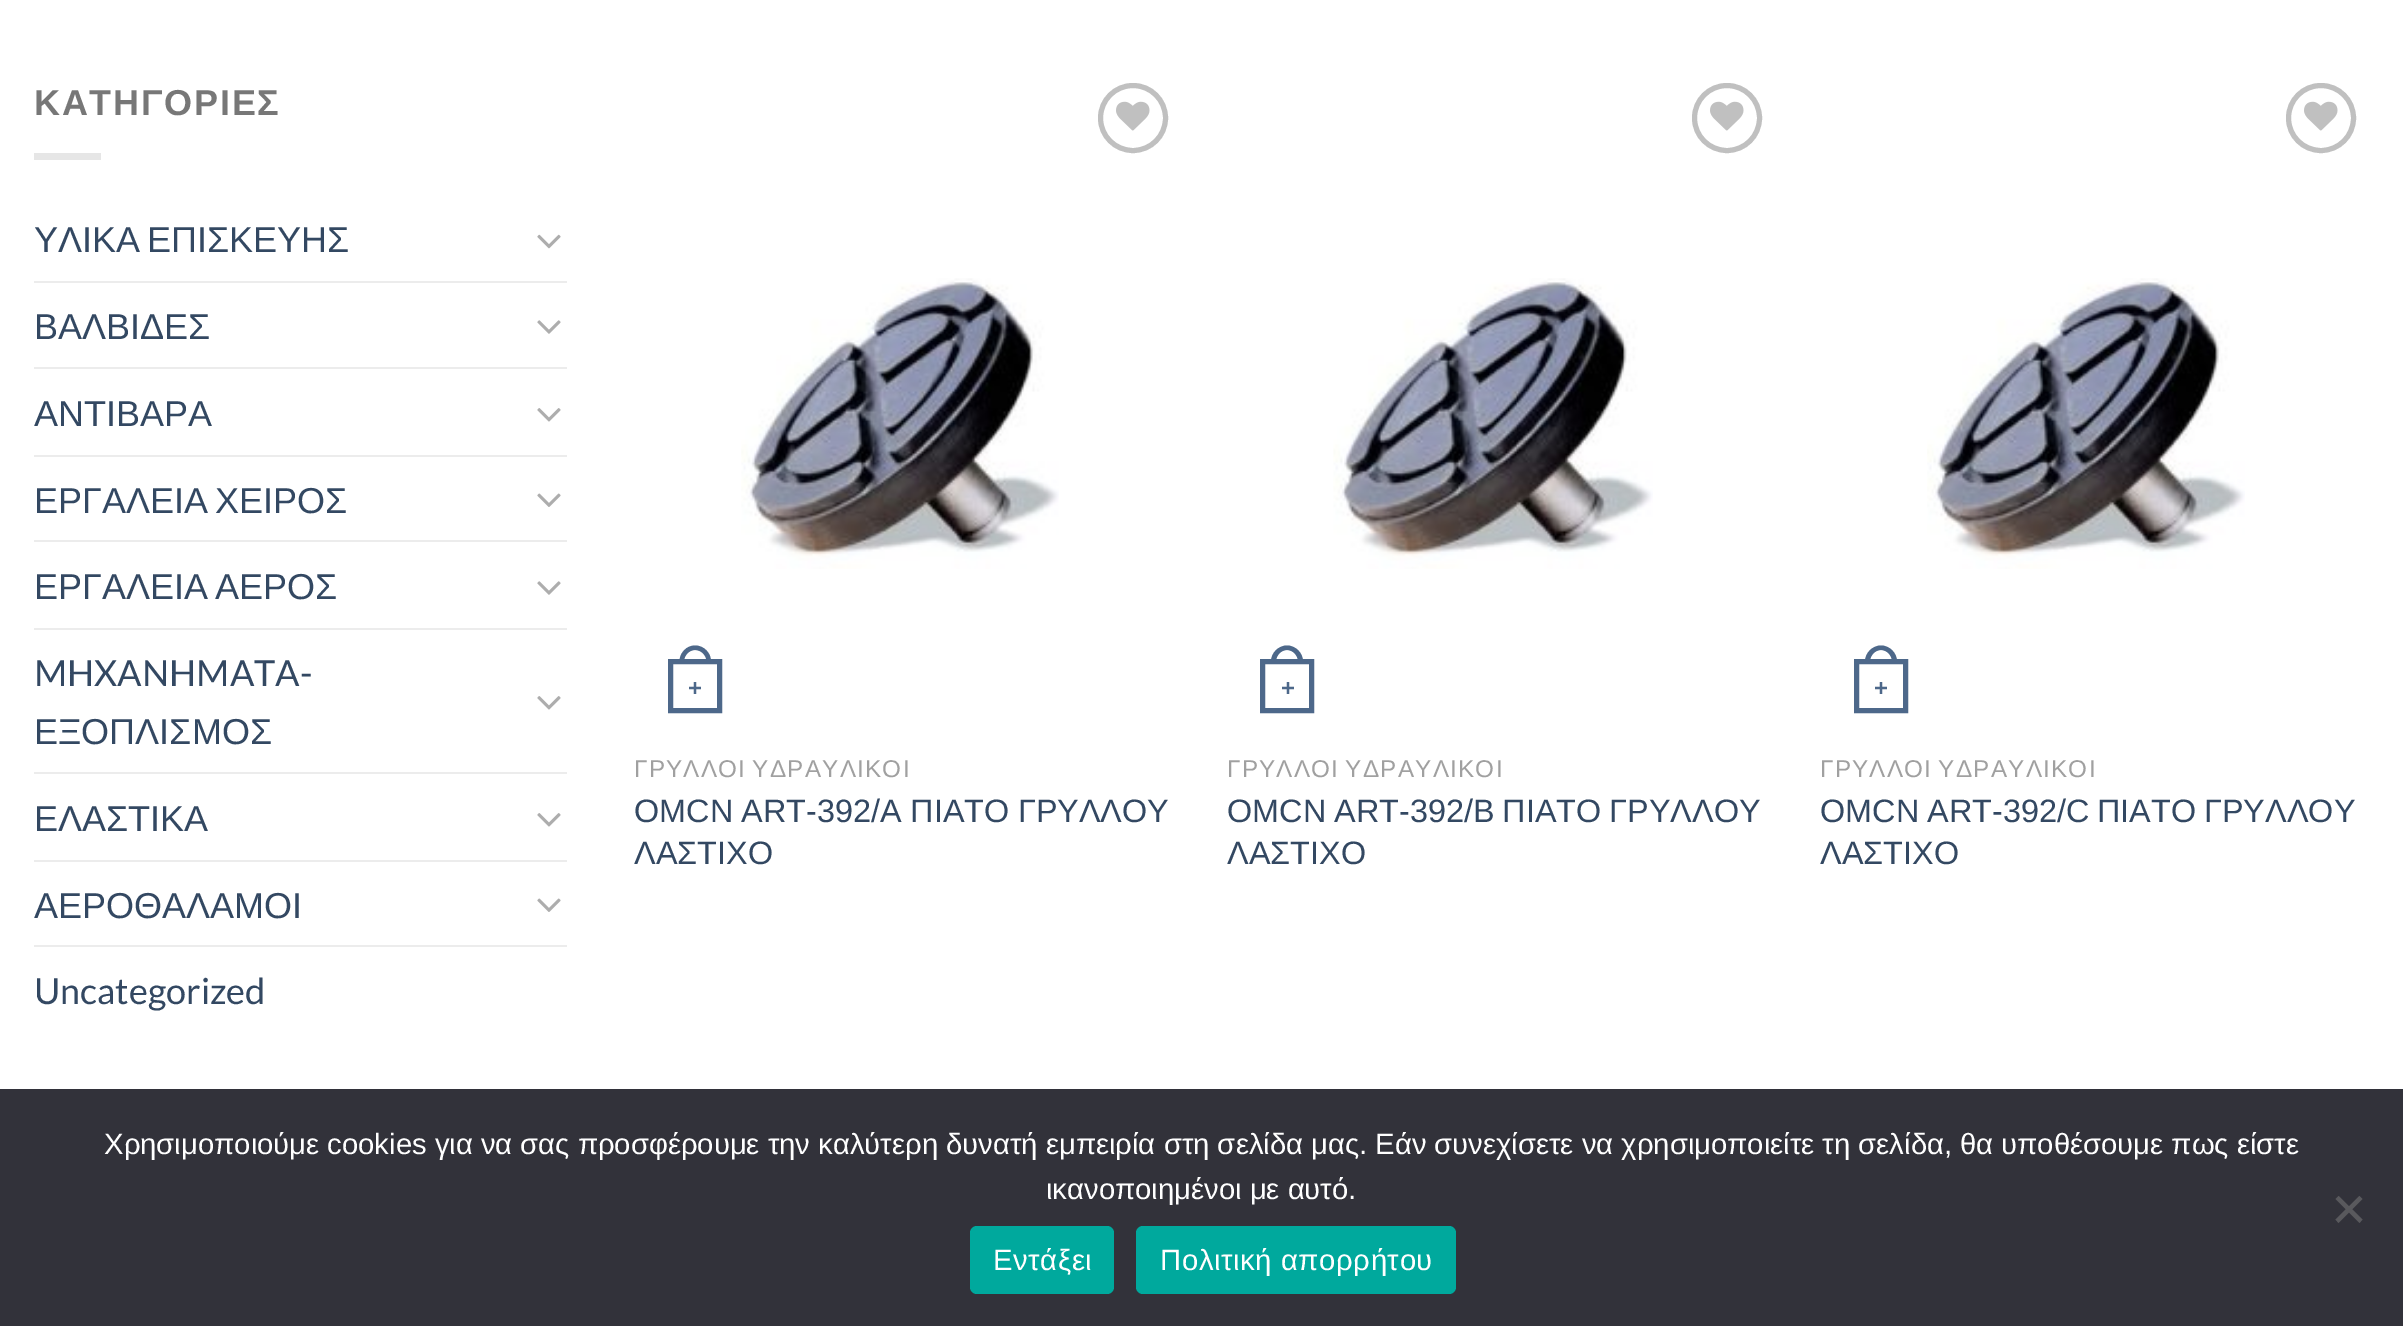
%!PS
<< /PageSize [2403 1326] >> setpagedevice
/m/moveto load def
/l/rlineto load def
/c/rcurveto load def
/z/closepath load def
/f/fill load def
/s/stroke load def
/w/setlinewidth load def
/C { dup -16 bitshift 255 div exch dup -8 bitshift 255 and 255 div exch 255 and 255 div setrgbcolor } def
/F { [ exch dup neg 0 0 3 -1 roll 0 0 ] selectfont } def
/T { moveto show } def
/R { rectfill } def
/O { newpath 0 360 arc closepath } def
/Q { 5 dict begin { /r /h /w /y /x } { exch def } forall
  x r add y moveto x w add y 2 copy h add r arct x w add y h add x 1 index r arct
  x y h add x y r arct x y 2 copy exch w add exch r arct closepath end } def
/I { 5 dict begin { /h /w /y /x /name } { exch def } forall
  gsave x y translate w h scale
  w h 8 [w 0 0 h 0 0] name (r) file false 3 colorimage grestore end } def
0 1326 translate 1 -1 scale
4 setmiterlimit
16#FFFFFF C
0 0 2403 1326 R
/LiberationSans-Bold 36 F
16#777777 C
34 115 m 1.75 0 (ΚΑΤΗΓΟΡΙΕΣ) ashow
16#E6E6E6 C
34 153 67 7 R
/LiberationSans-Regular 36 F
16#334862 C
34 252 m -3 0 32 (ΥΛΙΚΑ ΕΠΙΣΚΕΥΗΣ) widthshow
(1.rgb) 537 234 24 15 I
16#ECECEC C
34 281 533 2 R
16#334862 C
(ΒΑΛΒΙΔΕΣ) 34 339 T
(2.rgb) 537 320 24 14 I
16#ECECEC C
34 367 533 2 R
16#334862 C
(ΑΝΤΙΒΑΡΑ) 34 426 T
(3.rgb) 537 408 24 14 I
16#ECECEC C
34 455 533 2 R
16#334862 C
34 513 m -3 0 32 (ΕΡΓΑΛΕΙΑ ΧΕΙΡΟΣ) widthshow
(4.rgb) 537 493 24 14 I
16#ECECEC C
34 540 533 2 R
16#334862 C
34 599 m -3 0 32 (ΕΡΓΑΛΕΙΑ ΑΕΡΟΣ) widthshow
(2.rgb) 537 581 24 14 I
16#ECECEC C
34 628 533 2 R
/Lato-Regular 36 F
16#334862 C
(MHXANHMATA-) 34 686 T
/LiberationSans-Regular 36 F
(ΕΞΟΠΛΙΣΜΟΣ) 34 744 T
(3.rgb) 537 696 24 14 I
16#ECECEC C
34 772 533 2 R
16#334862 C
(ΕΛΑΣΤΙΚΑ) 34 831 T
(3.rgb) 537 813 24 14 I
16#ECECEC C
34 860 533 2 R
16#334862 C
(ΑΕΡΟΘΑΛΑΜΟΙ) 34 918 T
(4.rgb) 537 898 24 14 I
16#ECECEC C
34 945 533 2 R
/Lato-Regular 36 F
16#334862 C
(Uncategorized) 34 1004 T
16#C0C0C0 C
5 w
1133 118 32.5 O s
(5.rgb) 1116 101 34 30 I
(6.rgb) 741 278 318 291 I
16#4D688A C
670.5 661.5 49 49 rectstroke
695 645.5 m 9 0 16 7.5 16 16 c 0 2 l -31.5 0 l 0 -2 l 0 -8.5 7 -16 15.5 -16 c z 695 650 m 6.5 0 11.5 5.5 11.5 11.5 c 0 2 l -22.5 0 l 0 -2 l 0 -6 5 -11.5 11 -11.5 c z eofill
/LiberationSans-Bold 24 F
(+) 688 696 T
/LiberationSans-Regular 24.25 F
16#A0A0A0 C
634 777 m -2 0 32 1.25 0 (ΓΡΥΛΛΟΙ ΥΔΡΑΥΛΙΚΟΙ) awidthshow
/LiberationSans-Regular 32.4 F
16#334862 C
634 822 m -.5 0 32 (OMCN ART-392/A ΠΙΑΤΟ ΓΡΥΛΛΟΥ) widthshow
(ΛΑΣΤΙΧΟ) 634 864 T
16#C0C0C0 C
1727 118 32.5 O s
(5.rgb) 1710 101 34 30 I
(7.rgb) 1333 278 320 291 I
16#4D688A C
1262.5 661.5 49 49 rectstroke
1287 645.5 m 8.5 0 16 7.5 16 16 c 0 2 l -32 0 l 0 -2 l 0 -8.5 7.5 -16 16 -16 c z 1287 650 m 6 0 11 5.5 11 11.5 c 0 2 l -22 0 l 0 -2 l 0 -6 5 -11.5 11 -11.5 c z eofill
/LiberationSans-Bold 24 F
(+) 1281 696 T
/LiberationSans-Regular 24.25 F
16#A0A0A0 C
1227 777 m -2 0 32 1.25 0 (ΓΡΥΛΛΟΙ ΥΔΡΑΥΛΙΚΟΙ) awidthshow
/LiberationSans-Regular 32.4 F
16#334862 C
1227 822 m -1 0 32 (OMCN ART-392/B ΠΙΑΤΟ ΓΡΥΛΛΟΥ) widthshow
(ΛΑΣΤΙΧΟ) 1227 864 T
16#C0C0C0 C
2321 118 32.5 O s
(5.rgb) 2304 101 34 30 I
(8.rgb) 1927 278 318 291 I
16#4D688A C
1856.5 661.5 49 49 rectstroke
1881 645.5 m 8.5 0 16 7.5 16 16 c 0 2 l -32 0 l 0 -2 l 0 -8.5 7.5 -16 16 -16 c z 1881 650 m 6 0 11 5.5 11 11.5 c 0 2 l -22 0 l 0 -2 l 0 -6 5 -11.5 11 -11.5 c z eofill
/LiberationSans-Bold 24 F
(+) 1874 696 T
/LiberationSans-Regular 24.25 F
16#A0A0A0 C
1820 777 m -2 0 32 1.25 0 (ΓΡΥΛΛΟΙ ΥΔΡΑΥΛΙΚΟΙ) awidthshow
/LiberationSans-Regular 32.4 F
16#334862 C
1820 822 m -1 0 32 (OMCN ART-392/C ΠΙΑΤΟ ΓΡΥΛΛΟΥ) widthshow
(ΛΑΣΤΙΧΟ) 1820 864 T
16#32323A C
0 1089 2403 237 R
/LiberationSans-Regular 29.25 F
16#FFFFFF C
(Χρησιμοποιούμε cookies για να σας προσφέρουμε την καλύτερη δυνατή εμπειρία στη σελίδα μας. Εάν συνεχίσετε να χρησιμοποιείτε τη σελίδα, θα υποθέσουμε πως είστε) 104 1154 T
(ικανοποιημένοι με αυτό.) 1046 1199 T
16#59595D C
2359.5 1196 m 3 3 l -24 24 l -3 -3.5 l z f
2335.5 1199 m 3 -3 l 24 23.5 l -3 3.5 l z f
16#00A99D C
970 1226 144 68 7 Q f
16#FFFFFF C
993 1270 m .6 0 (Εντάξει) ashow
16#00A99D C
1136 1226 320 68 7 Q f
16#FFFFFF C
1160 1270 m .6 0 (Πολιτική απορρήτου) ashow
showpage
